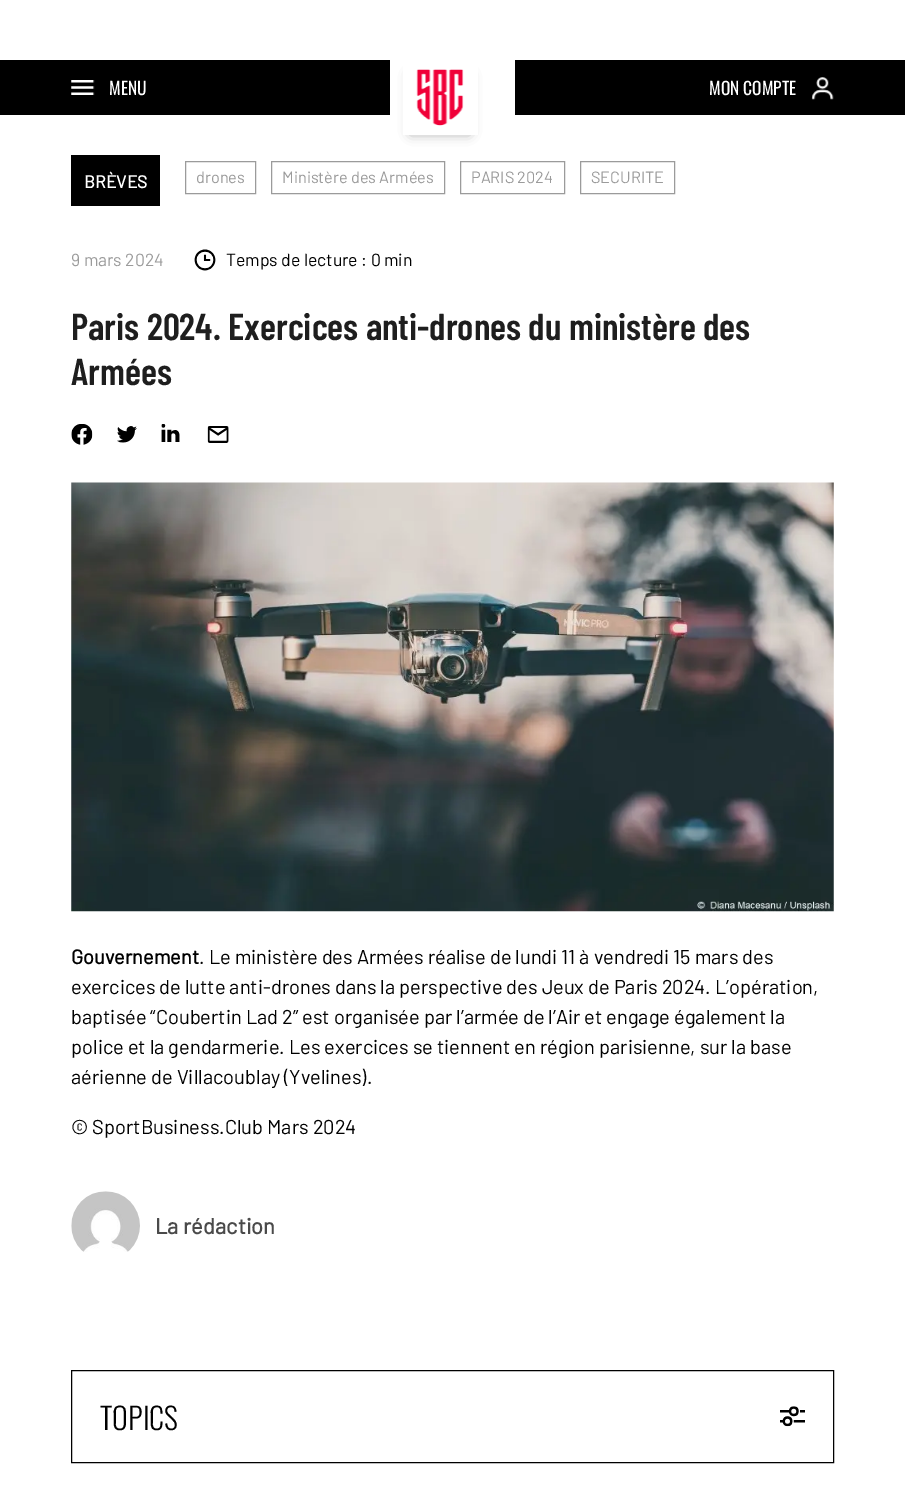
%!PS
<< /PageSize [905 1499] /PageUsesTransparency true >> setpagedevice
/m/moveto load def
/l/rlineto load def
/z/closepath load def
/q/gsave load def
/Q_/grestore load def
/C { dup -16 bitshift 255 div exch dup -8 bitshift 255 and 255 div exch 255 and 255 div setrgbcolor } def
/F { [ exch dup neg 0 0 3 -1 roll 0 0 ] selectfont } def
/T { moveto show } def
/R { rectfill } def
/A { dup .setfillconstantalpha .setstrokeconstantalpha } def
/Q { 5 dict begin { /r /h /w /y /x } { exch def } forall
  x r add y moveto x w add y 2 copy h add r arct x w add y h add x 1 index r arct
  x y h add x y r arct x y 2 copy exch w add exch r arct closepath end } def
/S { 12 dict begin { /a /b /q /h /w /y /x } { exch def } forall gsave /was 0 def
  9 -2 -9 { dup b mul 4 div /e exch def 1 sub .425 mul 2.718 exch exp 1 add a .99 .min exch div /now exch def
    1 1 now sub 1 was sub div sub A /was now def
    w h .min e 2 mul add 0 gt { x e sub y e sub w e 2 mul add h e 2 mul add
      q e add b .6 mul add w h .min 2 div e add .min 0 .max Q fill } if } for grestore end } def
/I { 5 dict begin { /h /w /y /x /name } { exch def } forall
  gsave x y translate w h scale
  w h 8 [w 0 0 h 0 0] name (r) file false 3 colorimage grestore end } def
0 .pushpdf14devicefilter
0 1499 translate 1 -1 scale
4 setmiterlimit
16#FFFFFF C
0 0 905 1499 R
16#000000 C
0 60 905 55 R
(1.rgb) 71 80 24 15 I
/Oswald-Regular 17.5 F
16#FFFFFF C
(MENU) 109 95 T
390 60 125 55 R
q
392 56 m 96 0 l 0 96 l -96 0 l z 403 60 m 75 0 l 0 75 l -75 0 l z eoclip newpath
16#000000 C
411 75 58 58 0 6 .4 S
Q_
(2.rgb) 416 69 48 57 I
(MON COMPTE) 709 95 T
(3.rgb) 811 77 23 23 I
16#000000 C
71 155 89 51 R
/Barlow-Bold 17.5 F
16#FFFFFF C
(BRÈVES) 84 188 T
16#9B9B9B C
185.5 161.5 70 32 rectstroke
/Barlow-Regular 16.25 F
(drones) 196 183 T
271.5 161.5 173 32 rectstroke
(Ministère des Armées) 282 183 T
460.5 161.5 104 32 rectstroke
(PARIS 2024) 471 183 T
580.5 161.5 94 32 rectstroke
(SECURITE) 591 183 T
/Barlow-Regular 17.5 F
(9 mars 2024) 71 266 T
(4.rgb) 194 249 22 22 I
16#000000 C
(Temps de lecture : 0 min) 226 266 T
/BarlowCondensed-SemiBold 37.5 F
16#1E1E1E C
(Paris 2024. Exercices anti-drones du ministère des) 71 340 T
(Armées) 71 385 T
(5.rgb) 71 424 22 21 I
(6.rgb) 117 426 20 17 I
(7.rgb) 161 424 19 18 I
(8.rgb) 207 426 22 17 I
(9.rgb) 71 482 763 430 I
/Barlow-Bold 20 F
16#000000 C
(Gouvernement) 71 964 T
/Barlow-Regular 20 F
(. Le ministère des Armées réalise de lundi 11 à vendredi 15 mars des) 199 964 T
(exercices de lutte anti-drones dans la perspective des Jeux de Paris 2024. L’opération,) 71 994 T
(baptisée “Coubertin Lad 2” est organisée par l’armée de l’Air et engage également la) 71 1024 T
(police et la gendarmerie. Les exercices se tiennent en région parisienne, sur la base) 71 1054 T
(aérienne de Villacoublay \(Yvelines\).) 71 1084 T
(© SportBusiness.Club Mars 2024) 71 1134 T
(10.rgb) 71 1191 69 61 I
/Barlow-Bold 22 F
16#4A4A4A C
(La rédaction) 155 1234 T
16#000000 C
71.5 1370.5 762 92 rectstroke
/Oswald-Light 30 F
(TOPICS) 100 1430 T
(11.rgb) 780 1406 25 21 I
.poppdf14devicefilter showpage
